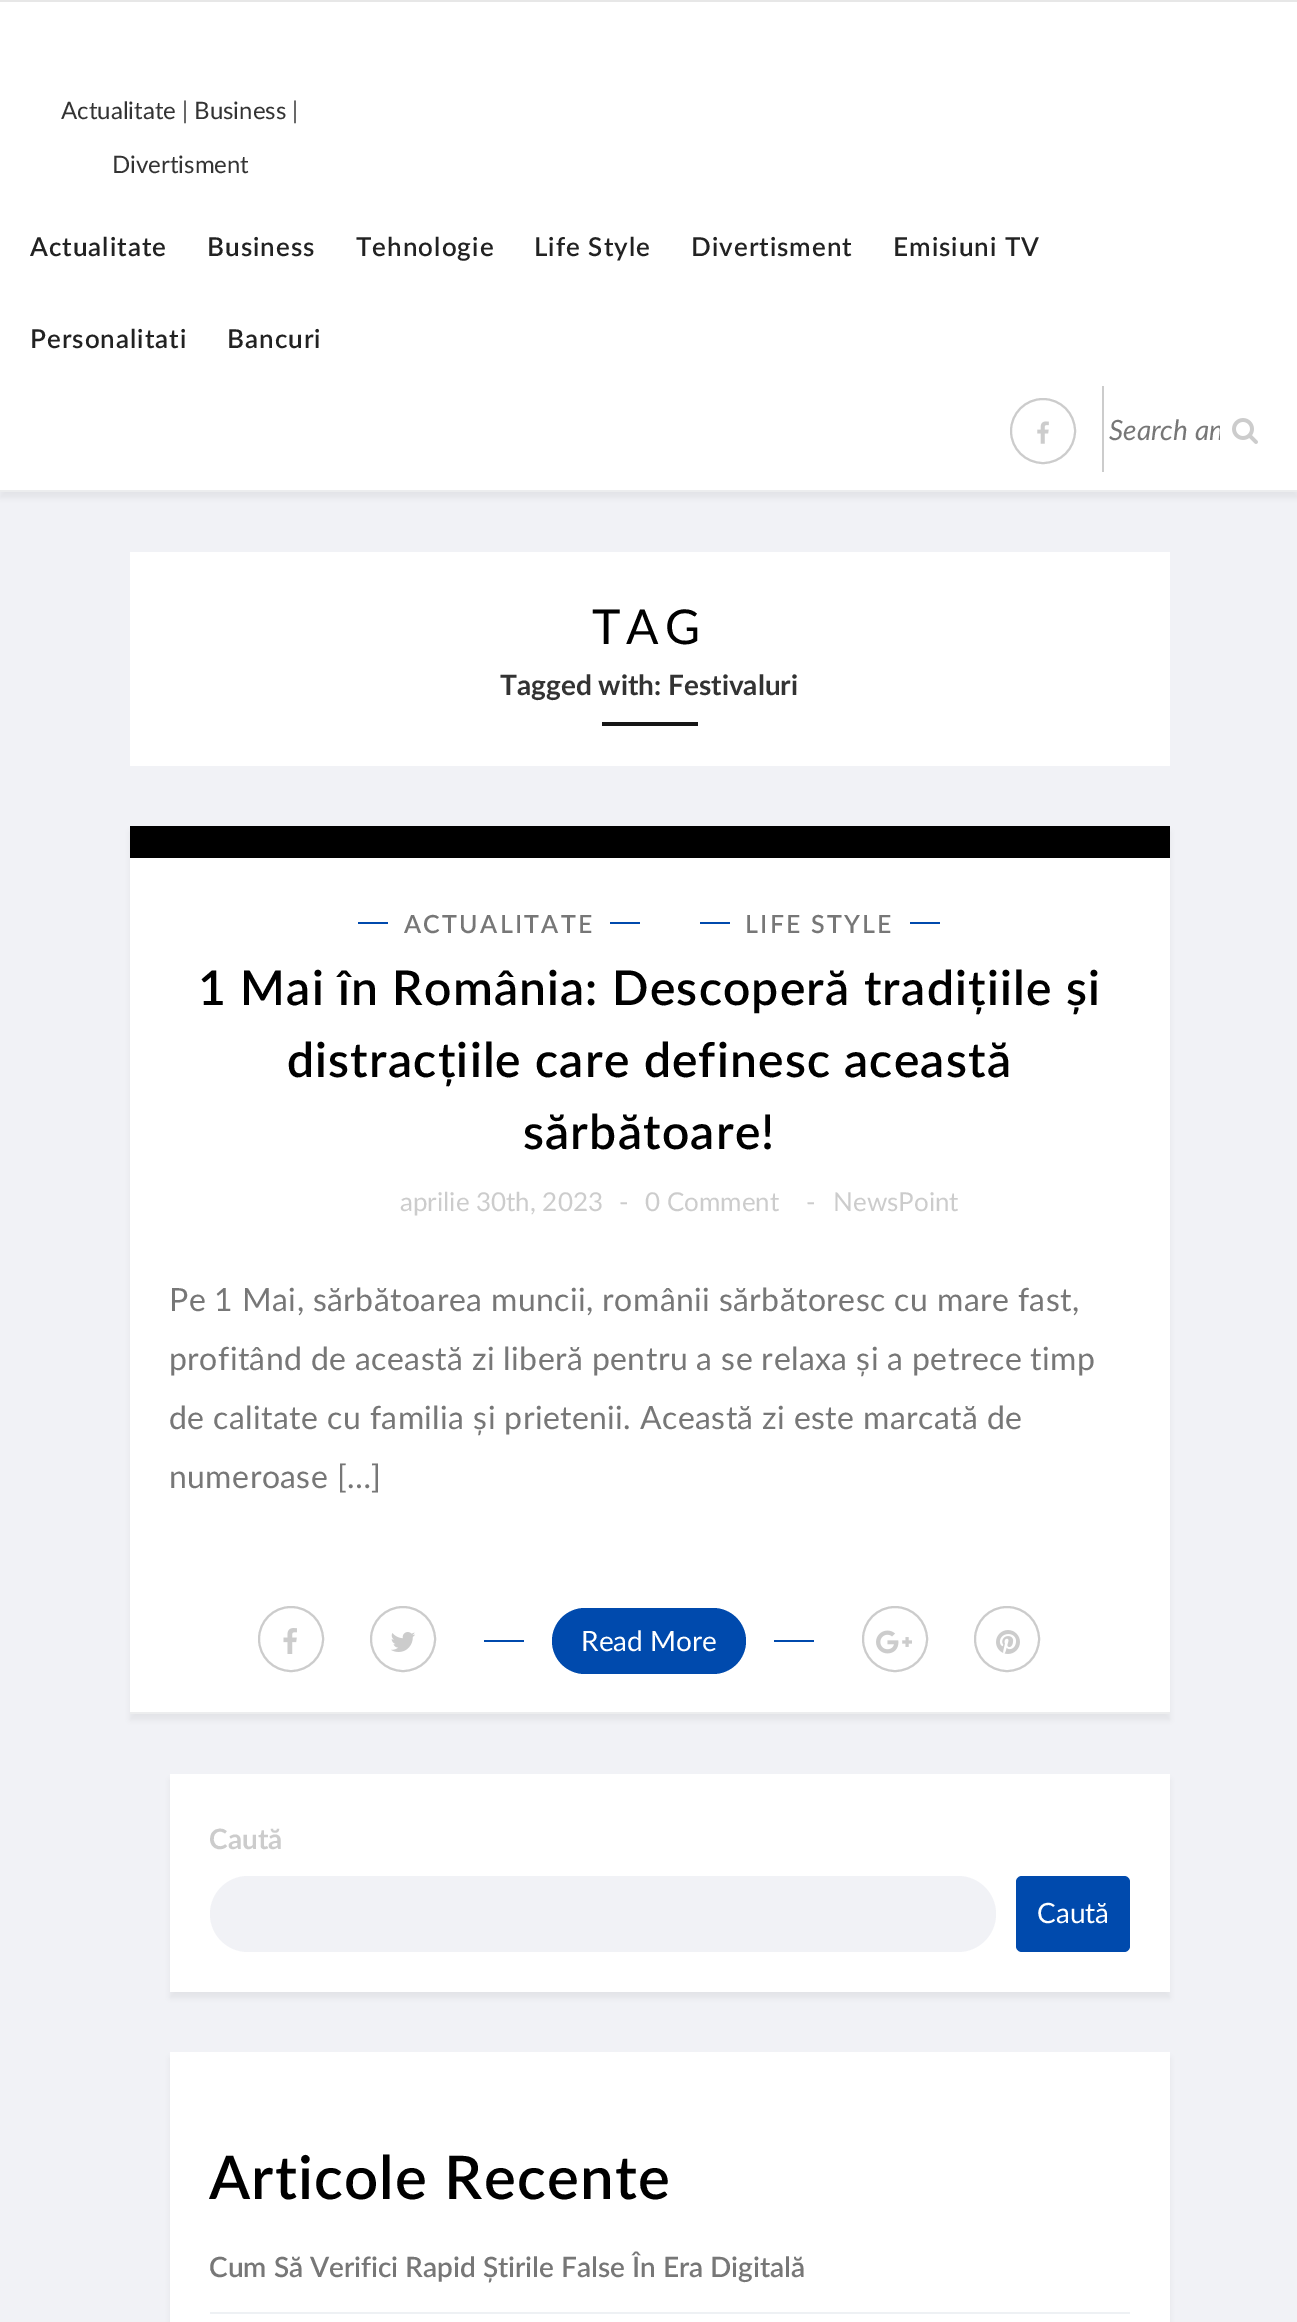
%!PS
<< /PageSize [1297 2322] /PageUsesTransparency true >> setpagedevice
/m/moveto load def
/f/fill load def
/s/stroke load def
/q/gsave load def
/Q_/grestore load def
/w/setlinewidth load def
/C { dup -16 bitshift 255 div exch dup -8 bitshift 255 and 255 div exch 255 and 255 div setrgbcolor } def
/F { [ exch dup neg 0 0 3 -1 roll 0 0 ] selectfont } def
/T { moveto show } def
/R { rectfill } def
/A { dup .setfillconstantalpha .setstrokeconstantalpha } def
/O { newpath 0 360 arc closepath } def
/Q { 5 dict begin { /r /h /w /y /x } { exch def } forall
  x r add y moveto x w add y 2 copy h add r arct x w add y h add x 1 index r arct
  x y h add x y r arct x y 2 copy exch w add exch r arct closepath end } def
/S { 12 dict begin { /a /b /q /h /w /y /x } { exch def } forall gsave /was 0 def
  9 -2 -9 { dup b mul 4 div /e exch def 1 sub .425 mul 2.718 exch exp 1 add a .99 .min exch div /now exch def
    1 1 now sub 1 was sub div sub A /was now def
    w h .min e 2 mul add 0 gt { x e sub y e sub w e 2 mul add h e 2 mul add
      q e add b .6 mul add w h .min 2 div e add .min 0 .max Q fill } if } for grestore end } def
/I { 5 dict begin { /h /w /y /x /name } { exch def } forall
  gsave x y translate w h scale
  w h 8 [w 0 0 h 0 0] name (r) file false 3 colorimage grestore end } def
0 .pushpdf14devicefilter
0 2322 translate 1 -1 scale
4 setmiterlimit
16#F1F2F6 C
0 0 1297 2322 R
16#000000 C
0 6 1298 492 0 3 .05 S
16#FFFFFF C
0 2 1297 488 R
16#E7E7E7 C
0 0 1297 2 R
16#ECEDEE C
0 490 1297 2 R
/Lato-Regular 24 F
16#333333 C
(Actualitate | Business |) 61 119 T
(Divertisment) 112 173 T
/Lato-SemiBold 26 F
16#222222 C
30 256 m 1 0 (Actualitate) ashow
207 256 m 1 0 (Business) ashow
356 256 m 1 0 (Tehnologie) ashow
534 256 m 1 0 (Life Style) ashow
691 256 m 1 0 (Divertisment) ashow
893 256 m 1 0 (Emisiuni TV) ashow
30 348 m 1 0 (Personalitati) ashow
227 348 m 1 0 (Bancuri) ashow
16#CCCCCC C
2 w
1043 431 32 O s
(1.rgb) 1037 421 12 23 I
1102 386 2 86 R
q
1108 412 112 34 rectclip
/Lato-Italic 28 F
16#777777 C
(Search an) 1109 440 T
Q_
(2.rgb) 1232 418 26 26 I
16#FFFFFF C
130 552 1040 214 R
/Lato-Regular 48 F
16#000000 C
592 644 m 6 0 (TAG) ashow
/Lato-Bold 28 F
16#333333 C
(Tagged with: Festivaluri) 500 695 T
16#161616 C
602 722 96 4 R
16#000000 C
130 832 1040 888 0 3 .05 S
16#FFFFFF C
130 858 1040 854 R
16#ECEDEE C
130 1712 1040 2 R
16#000000 C
130 826 1040 32 R
16#004AAD C
358 922 30 2 R
/Lato-SemiBold 25 F
16#777777 C
404 933 m 2.25 0 (ACTUALITATE) ashow
16#004AAD C
610 922 30 2 R
700 922 30 2 R
16#777777 C
745 933 m 2.25 0 (LIFE STYLE) ashow
16#004AAD C
910 922 30 2 R
/Lato-SemiBold 48 F
16#000000 C
198 1005 m 1.2 0 (1 Mai în România: Descoperă tradițiile și) ashow
287 1077 m 1.2 0 (distracțiile care definesc această) ashow
523 1149 m 1.2 0 (sărbătoare!) ashow
/Lato-Regular 26 F
16#CCCCCC C
(aprilie 30th, 2023) 400 1211 T
(-) 619 1211 T
(0 Comment) 645 1211 T
(-) 806 1211 T
(NewsPoint) 833 1211 T
/Lato-Regular 32 F
16#777777 C
169 1311 m .4 0 (Pe 1 Mai, sărbătoarea muncii, românii sărbătoresc cu mare fast,) ashow
169 1370 m .4 0 (profitând de această zi liberă pentru a se relaxa și a petrece timp) ashow
169 1429 m .4 0 (de calitate cu familia și prietenii. Această zi este marcată de) ashow
169 1488 m .4 0 (numeroase […]) ashow
16#CCCCCC C
291 1639 32 O s
(3.rgb) 283 1628 14 26 I
403 1639 32 O s
(4.rgb) 391 1632 24 20 I
16#004AAD C
484 1640 40 2 R
552 1608 194 66 33 Q f
/Lato-Regular 28 F
16#FFFFFF C
(Read More) 581 1651 T
16#004AAD C
774 1640 40 2 R
16#CCCCCC C
895 1639 32 O s
(5.rgb) 876 1630 36 24 I
1007 1639 32 O s
(6.rgb) 996 1630 24 24 I
16#000000 C
170 1780 1000 218 0 3 .05 S
16#FFFFFF C
170 1774 1000 218 R
/Lato-Bold 28 F
16#CCCCCC C
(Caută) 209 1849 T
16#F1F2F6 C
210 1876 786 76 38 Q f
16#004AAD C
1016 1876 114 76 6 Q f
/Lato-Regular 28 F
16#FFFFFF C
(Caută) 1037 1923 T
16#000000 C
170 2058 1000 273 0 3 .05 S
16#FFFFFF C
170 2052 1000 270 R
/Lato-SemiBold 60 F
16#000000 C
209 2199 m 1.2 0 (Articole Recente) ashow
16#EEF1F4 C
210 2312 920 2 R
/Lato-SemiBold 28 F
16#777777 C
(Cum Să Verifici Rapid Știrile False În Era Digitală) 209 2277 T
.poppdf14devicefilter showpage
